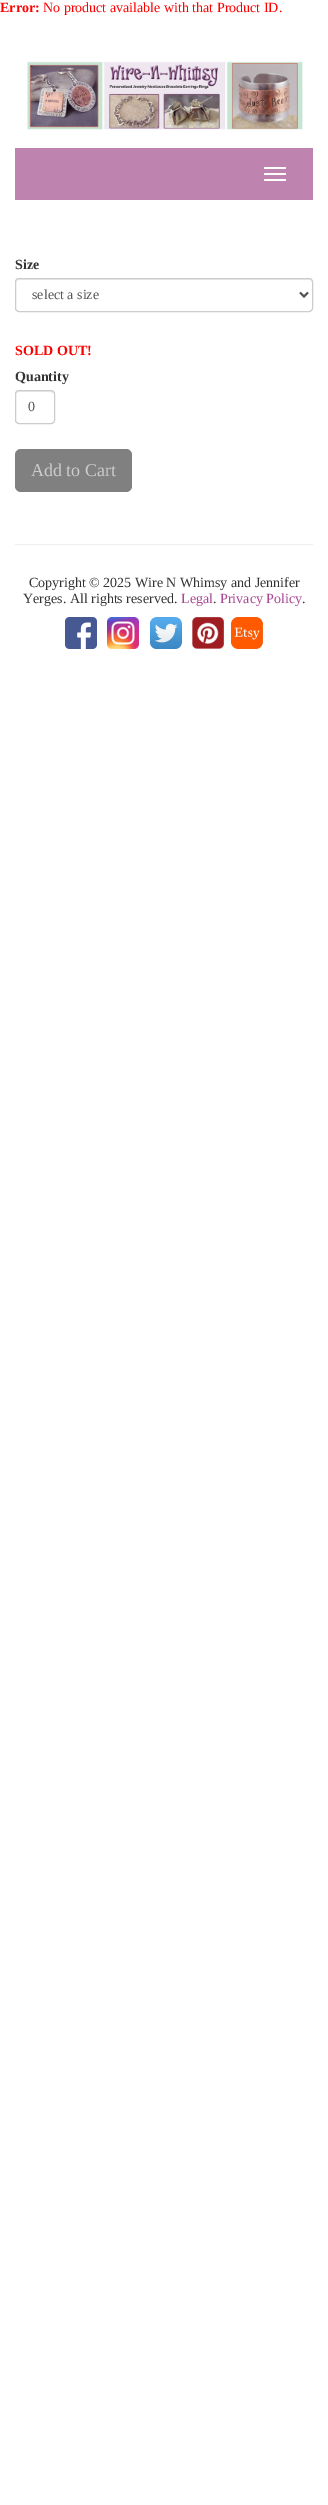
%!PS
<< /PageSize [328 2505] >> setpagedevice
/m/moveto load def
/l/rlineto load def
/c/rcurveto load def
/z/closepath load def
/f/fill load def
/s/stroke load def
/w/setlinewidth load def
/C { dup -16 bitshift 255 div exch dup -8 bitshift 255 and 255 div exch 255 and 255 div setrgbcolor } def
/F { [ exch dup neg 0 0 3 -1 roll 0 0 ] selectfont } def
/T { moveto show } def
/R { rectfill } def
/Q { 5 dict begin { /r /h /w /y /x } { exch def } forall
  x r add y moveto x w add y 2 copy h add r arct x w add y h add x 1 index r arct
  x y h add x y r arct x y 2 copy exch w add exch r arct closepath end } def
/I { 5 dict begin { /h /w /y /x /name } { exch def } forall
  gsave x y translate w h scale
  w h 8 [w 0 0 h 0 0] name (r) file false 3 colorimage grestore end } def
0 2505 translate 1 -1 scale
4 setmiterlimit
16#FFFFFF C
0 0 328 2505 R
/LiberationSerif-Bold 14 F
16#FF0000 C
(Error:) 0 12 T
/LiberationSerif-Regular 14 F
(No product available with that Product ID.) 43 12 T
(1.rgb) 27 61 276 69 I
16#BE83AF C
15 148 298 52 R
16#FFFFFF C
264 167 22 2 1 Q f
264 173 22 2 1 Q f
264 179 22 2 1 Q f
/LiberationSerif-Bold 14 F
16#333333 C
(Size) 15 269 T
16#ECECEC C
19 280 m 290 0 l 2 0 3 1 3 3 c -1 -3 l -1 -1 l -291 0 l -2 0 -3 2 -3 4 c 0 -2 1 -3 3 -3 c z f
16#CCCCCC C
15.5 278.5 297 33 3.5 Q s
16#555555 C
2 w
300 292.5 m 4 4 l 4 -4 l s
/LiberationSerif-Regular 14 F
(select a size) 32 299 T
/LiberationSerif-Bold 14 F
16#FF0000 C
(SOLD OUT!) 15 355 T
16#333333 C
(Quantity) 15 381 T
16#ECECEC C
19 392 m 27 0 l 5.5 0 7.5 .5 8 2.5 c 0 -5 -4.5 -3.5 -8.5 -3.5 c -21 0 l -3.5 0 -8.5 -1 -8.5 3.5 c .5 -1.5 1.5 -2.5 3 -2.5 c z f
16#CCCCCC C
1 w
15.5 390.5 39 33 3.5 Q s
/LiberationSerif-Regular 14 F
16#555555 C
(0) 28 411 T
16#808080 C
15 449 117 43 6 Q f
/LiberationSerif-Regular 18 F
16#CCCCCC C
(Add to Cart) 31 476 T
16#EEEEEE C
15 544 298 1 R
/LiberationSerif-Regular 14 F
16#333333 C
(Copyright © 2025 Wire N Whimsy and Jennifer) 29 587 T
(Yerges. All rights reserved.) 23 603 T
16#A84794 C
(Legal) 181 603 T
16#333333 C
(.) 213 603 T
16#A84794 C
(Privacy Policy) 220 603 T
16#333333 C
(.) 302 603 T
(2.rgb) 65 617 32 32 I
(3.rgb) 107 617 32 32 I
(4.rgb) 150 617 32 32 I
(5.rgb) 192 617 32 32 I
(6.rgb) 231 617 32 32 I
showpage
